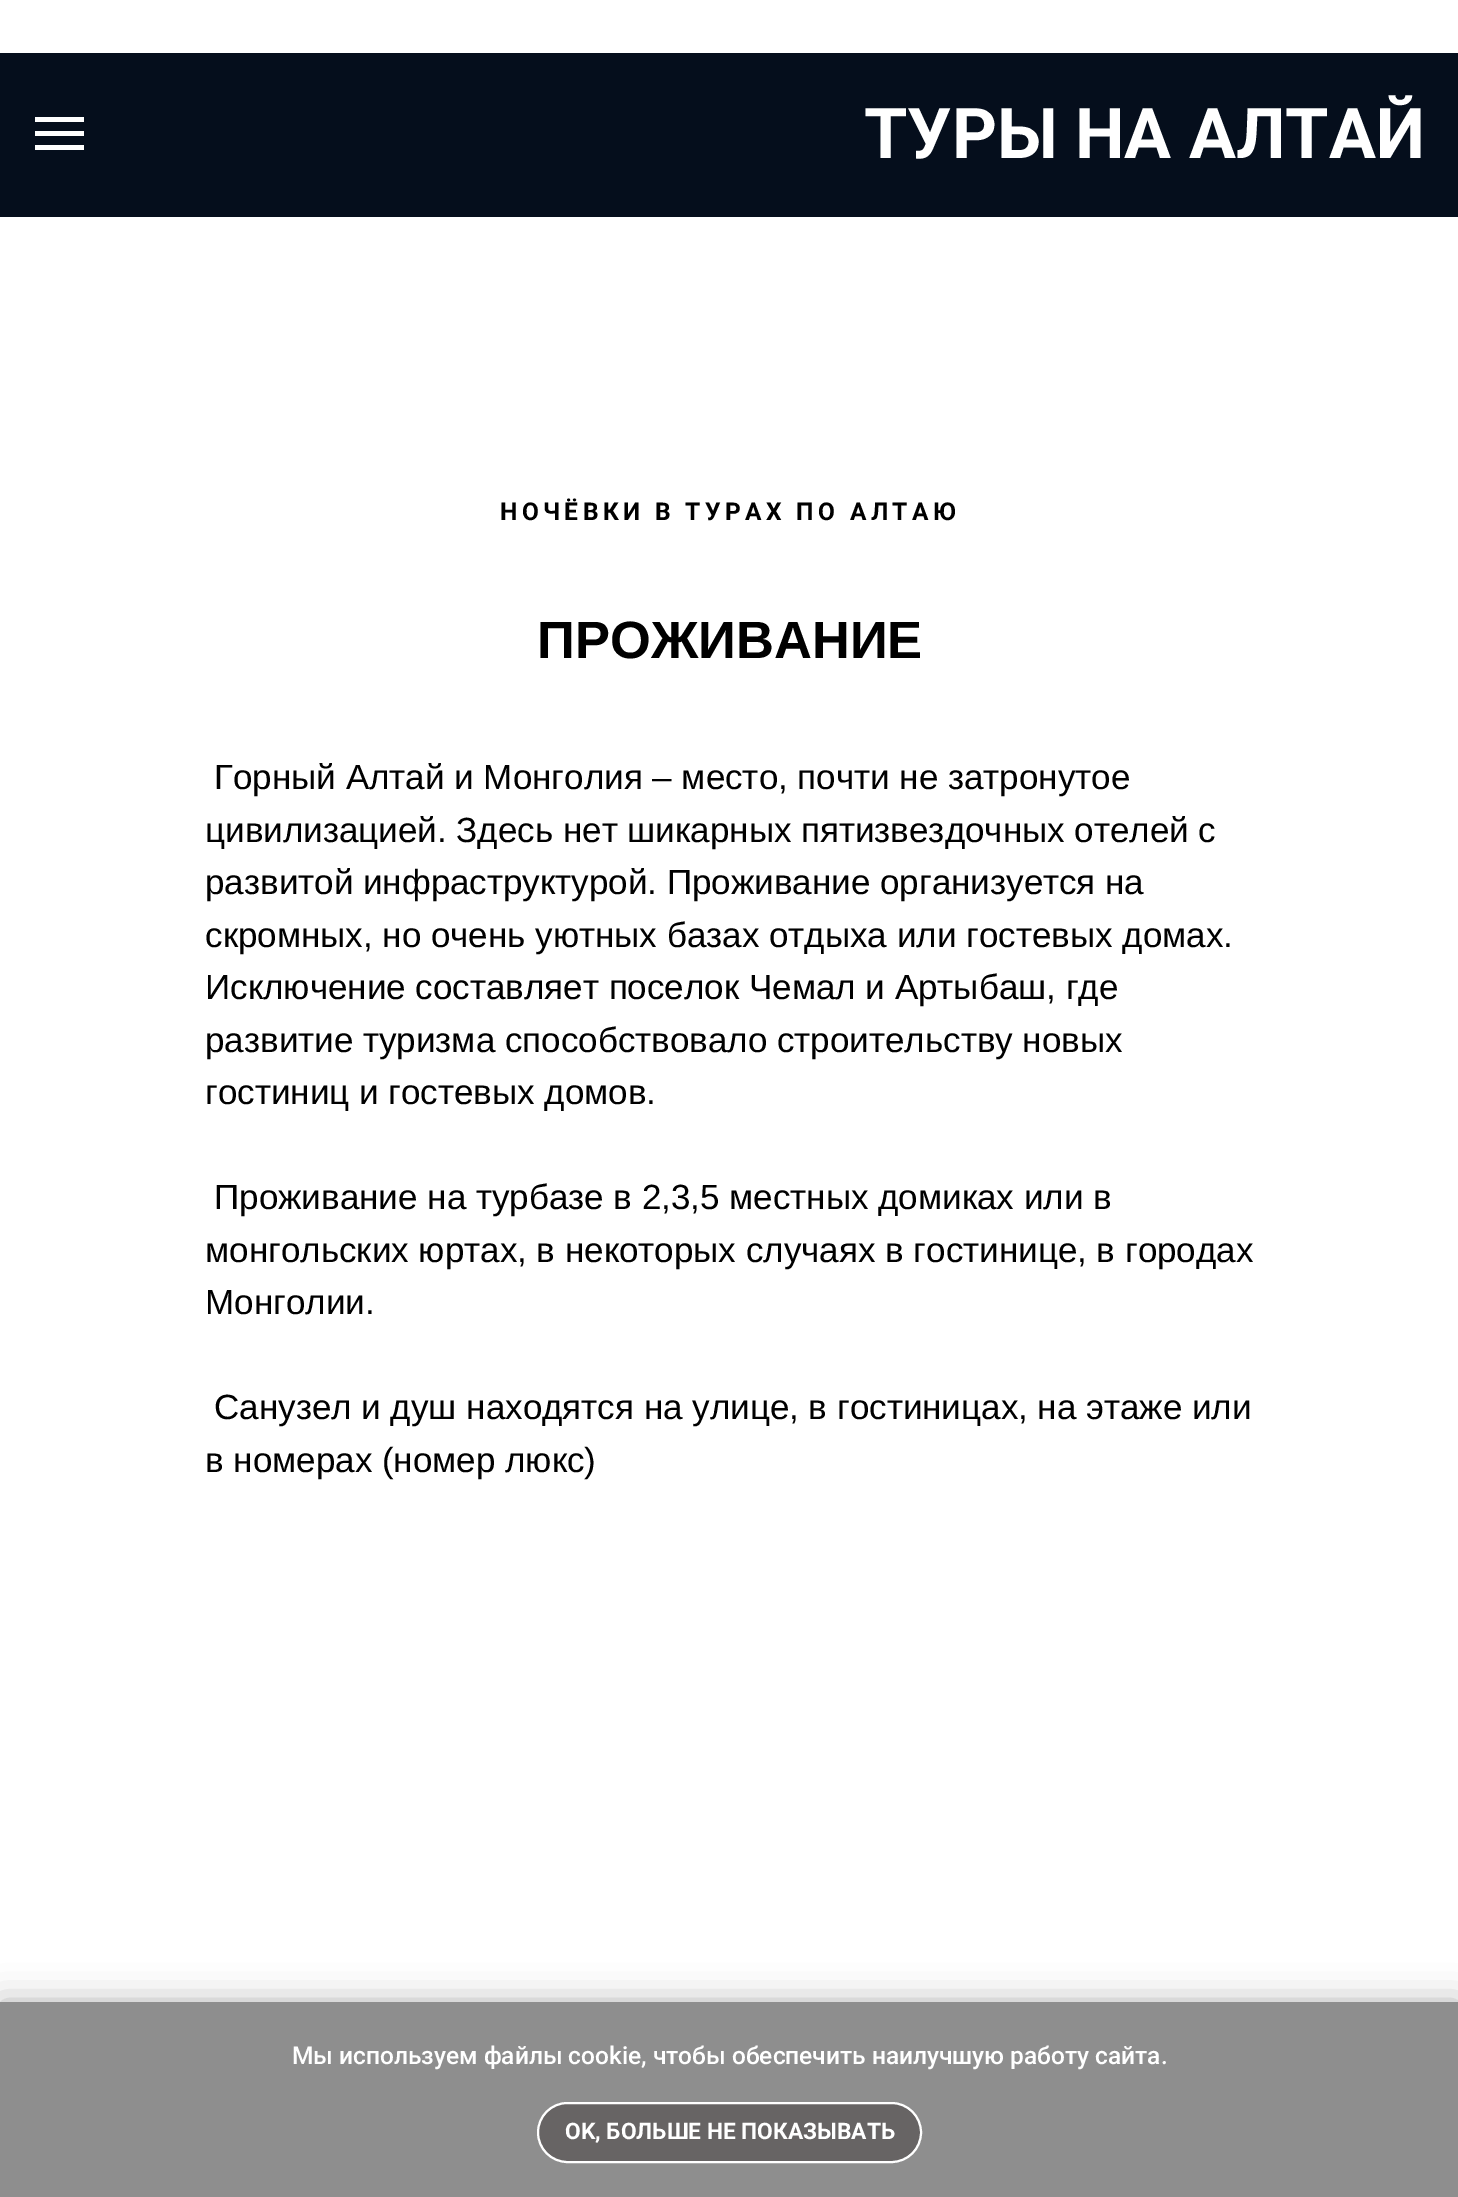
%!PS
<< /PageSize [1458 2197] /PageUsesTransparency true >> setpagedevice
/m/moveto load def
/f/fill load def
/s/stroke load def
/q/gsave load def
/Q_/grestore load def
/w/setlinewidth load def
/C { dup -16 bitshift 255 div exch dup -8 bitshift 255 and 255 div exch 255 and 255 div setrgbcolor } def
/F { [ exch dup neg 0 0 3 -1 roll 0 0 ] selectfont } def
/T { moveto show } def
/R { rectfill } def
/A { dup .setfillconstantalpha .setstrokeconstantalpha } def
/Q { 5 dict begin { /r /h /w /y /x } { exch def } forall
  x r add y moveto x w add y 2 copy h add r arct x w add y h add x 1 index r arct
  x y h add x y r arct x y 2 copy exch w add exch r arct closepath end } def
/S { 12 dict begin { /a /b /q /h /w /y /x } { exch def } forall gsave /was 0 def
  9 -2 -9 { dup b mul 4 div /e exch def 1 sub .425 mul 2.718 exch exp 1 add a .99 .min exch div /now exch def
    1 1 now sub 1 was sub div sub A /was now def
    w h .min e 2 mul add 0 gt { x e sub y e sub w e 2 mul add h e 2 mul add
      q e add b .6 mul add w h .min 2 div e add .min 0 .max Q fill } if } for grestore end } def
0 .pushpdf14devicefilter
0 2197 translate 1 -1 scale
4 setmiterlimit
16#FFFFFF C
0 0 1458 2197 R
16#050E1C C
0 53 1458 164 R
16#FFFFFF C
35 117 49 5 R
35 131 49 5 R
35 145 49 5 R
/Roboto-Bold 70 F
(ТУРЫ НА АЛТАЙ) 864 158 T
16#000000 C
0 2002 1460 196 0 17.5 .3 S
16#8E8E8E C
0 2002 1458 195 R
/Roboto-Medium 24.5 F
16#FFFFFF C
(Мы используем файлы cookie, чтобы обеспечить наилучшую работу сайта.) 292 2064 T
16#676464 C
538 2103 383 59 29.5 Q q f Q_
16#FFFFFF C
2 w
s
/Roboto-Bold 22.75 F
(OK, БОЛЬШЕ НЕ ПОКАЗЫВАТЬ) 565 2139 T
/Roboto-Bold 24.5 F
16#000000 C
500 520 m 4.4 0 (НОЧЁВКИ В ТУРАХ ПО АЛТАЮ) ashow
/LiberationSans-Bold 52.5 F
(ПРОЖИВАНИЕ) 537 658 T
/LiberationSans-Regular 35 F
(Горный Алтай и Монголия – место, почти не затронутое) 214 789 T
(цивилизацией. Здесь нет шикарных пятизвездочных отелей с) 205 842 T
(развитой инфраструктурой. Проживание организуется на) 205 894 T
(скромных, но очень уютных базах отдыха или гостевых домах.) 205 947 T
(Исключение составляет поселок Чемал и Артыбаш, где) 205 999 T
(развитие туризма способствовало строительству новых) 205 1052 T
(гостиниц и гостевых домов.) 205 1104 T
(Проживание на турбазе в 2,3,5 местных домиках или в) 214 1209 T
(монгольских юртах, в некоторых случаях в гостинице, в городах) 205 1262 T
(Монголии.) 205 1314 T
(Санузел и душ находятся на улице, в гостиницах, на этаже или) 214 1419 T
(в номерах \(номер люкс\)) 205 1472 T
.poppdf14devicefilter showpage
